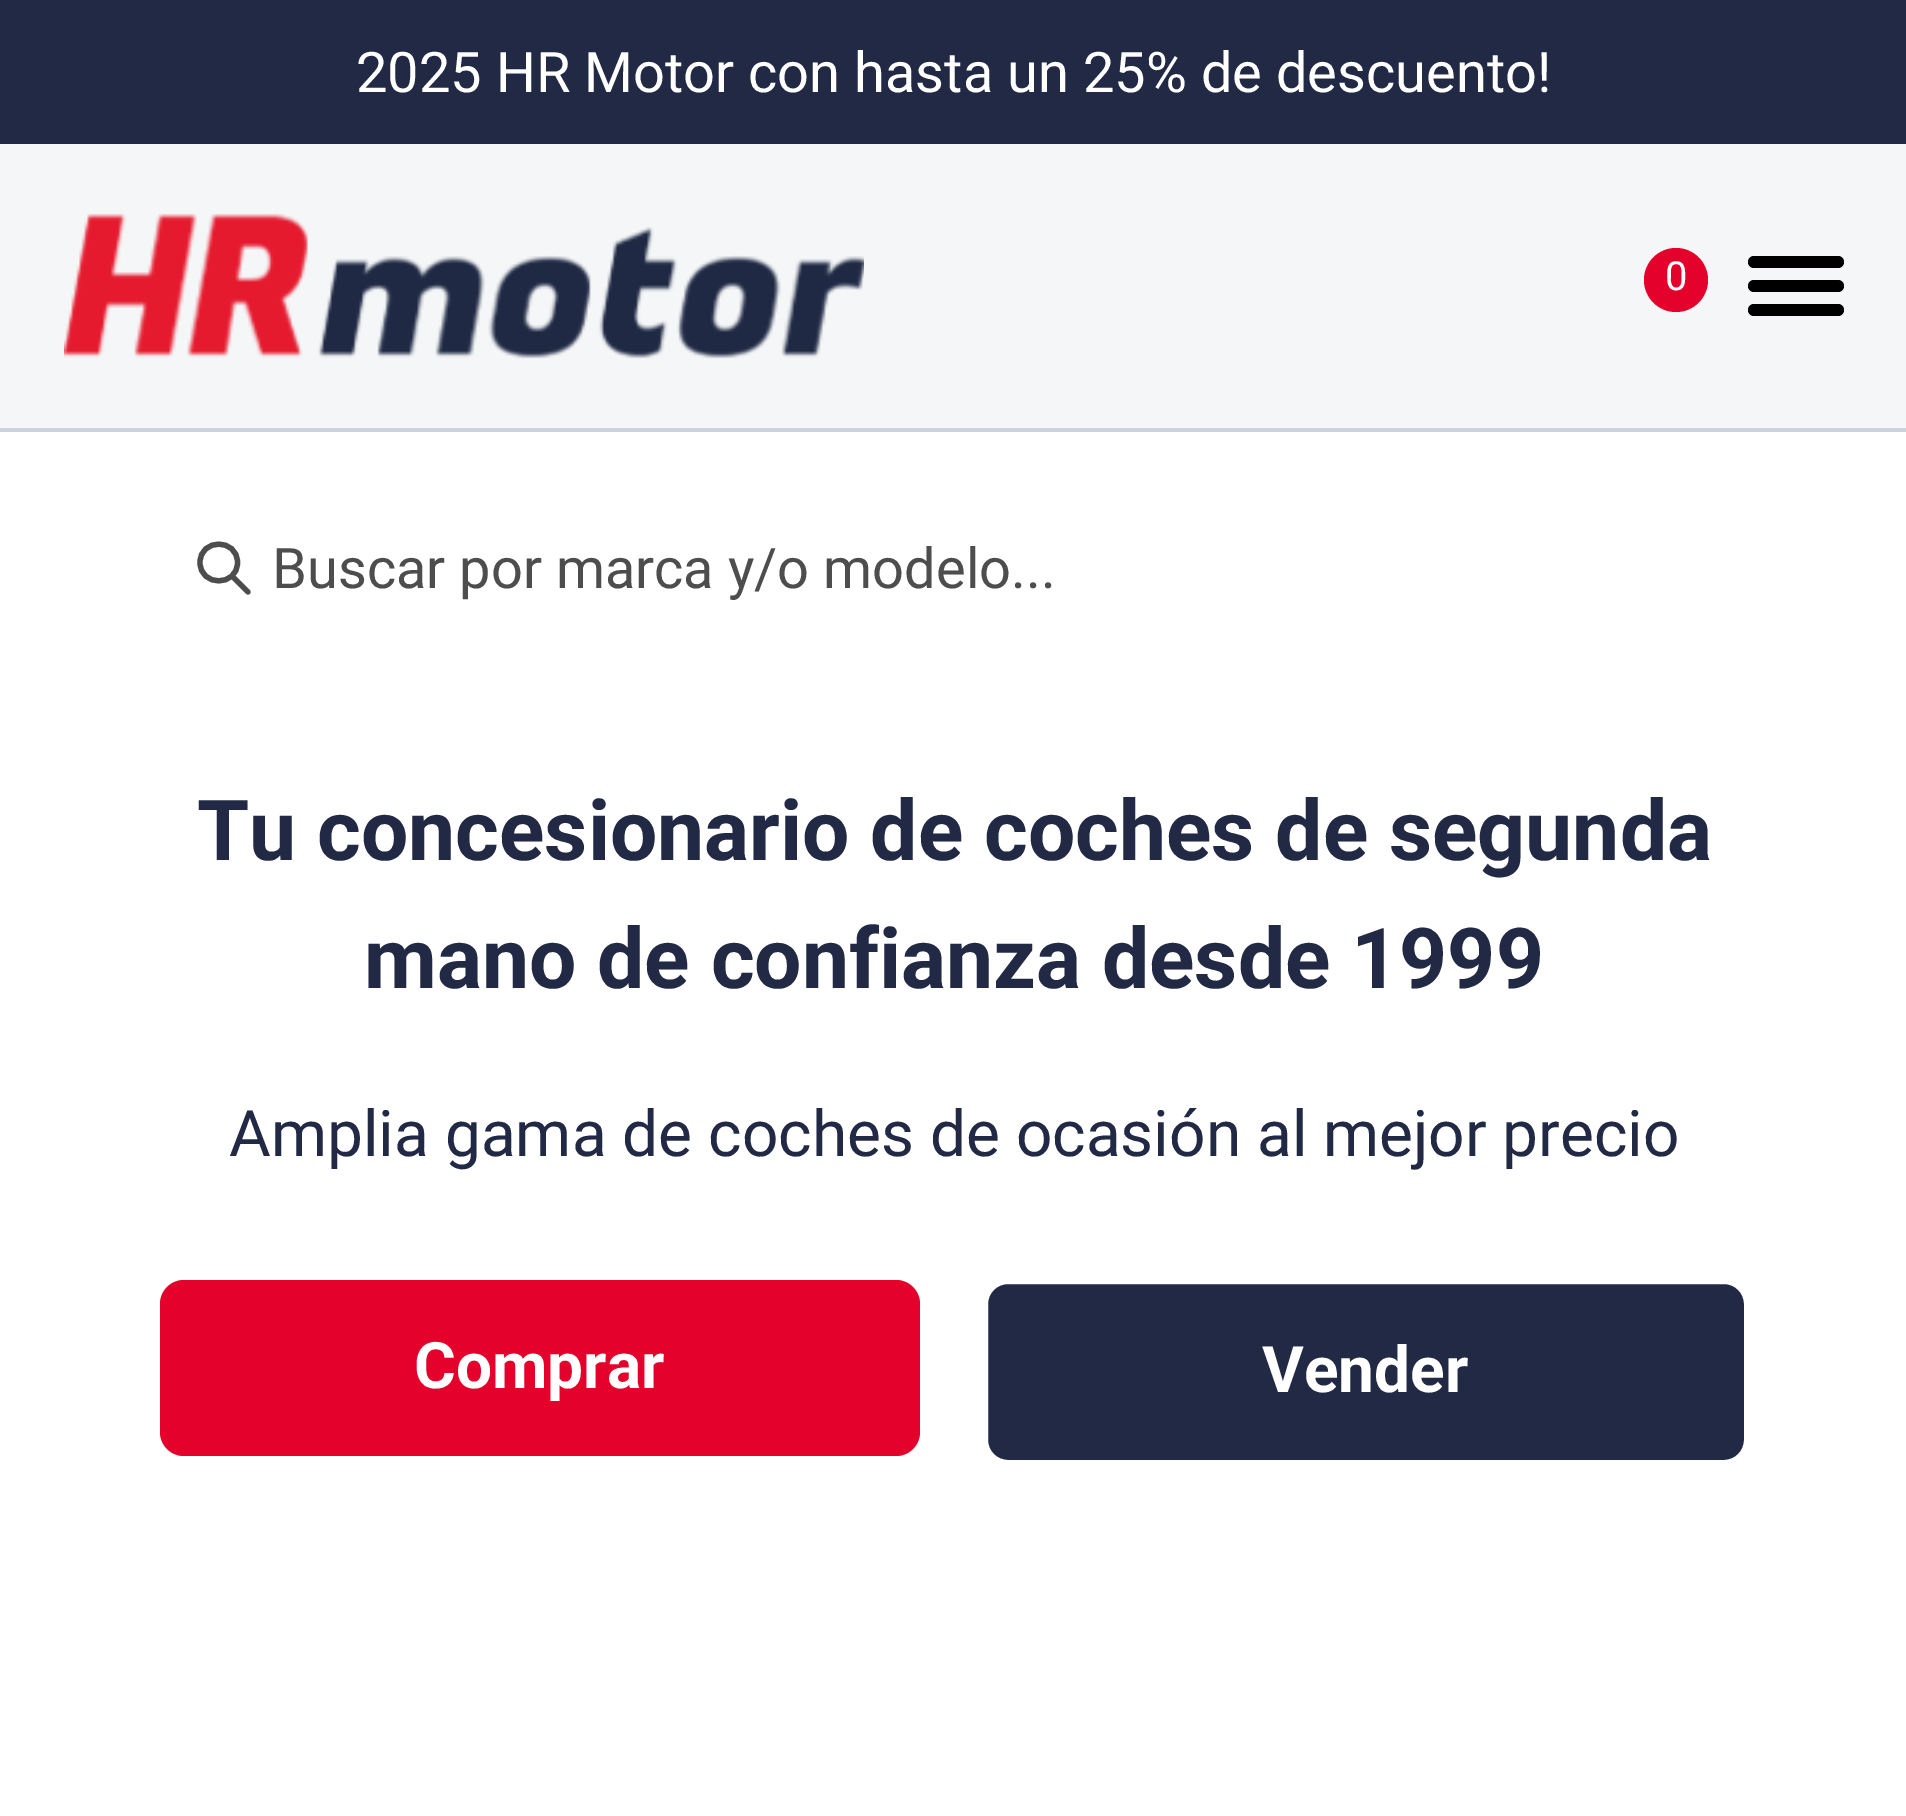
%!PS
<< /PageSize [1906 1816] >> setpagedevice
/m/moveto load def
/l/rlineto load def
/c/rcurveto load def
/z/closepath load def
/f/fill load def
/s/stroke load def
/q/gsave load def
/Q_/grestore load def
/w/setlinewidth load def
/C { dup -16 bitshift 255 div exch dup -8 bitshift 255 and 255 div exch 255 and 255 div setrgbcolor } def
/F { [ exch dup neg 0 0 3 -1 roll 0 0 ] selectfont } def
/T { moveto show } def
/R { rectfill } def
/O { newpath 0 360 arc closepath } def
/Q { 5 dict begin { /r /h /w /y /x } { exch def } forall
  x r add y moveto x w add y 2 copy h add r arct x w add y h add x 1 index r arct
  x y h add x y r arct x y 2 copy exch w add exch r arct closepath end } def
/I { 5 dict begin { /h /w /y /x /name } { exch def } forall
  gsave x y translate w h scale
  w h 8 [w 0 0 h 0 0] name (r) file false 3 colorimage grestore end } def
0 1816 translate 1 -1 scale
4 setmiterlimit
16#FFFFFF C
0 0 1906 1816 R
16#212945 C
0 0 1906 144 R
/Roboto-Regular 56 F
16#FFFFFF C
(2025 HR Motor con hasta un 25% de descuento!) 356 92 T
16#F4F6F7 C
0 144 1906 284 R
16#CBD4DC C
0 428 1906 4 R
(1.rgb) 64 213 800 146 I
16#E4022C C
1676 280 32 O f
/Roboto-Regular 40 F
16#FFFFFF C
(0) 1665 290 T
16#000000 C
1748 280 96 12 6 Q f
1748 256 96 12 6 Q f
1748 304 96 12 6 Q f
16#4D4D4D C
5.3 w
1 setlinecap
1 setlinejoin
248 592 m -16 -16 l 237.5 562.5 m 0 24.5 -37.5 24.5 -37.5 0 c 0 -24.5 37.5 -24.5 37.5 0 c z s
/Roboto-Regular 56 F
(Buscar por marca y/o modelo...) 272 588 T
/Roboto-Bold 84 F
16#212945 C
(Tu concesionario de coches de segunda) 197 860 T
(mano de confianza desde 1999) 364 988 T
/Roboto-Regular 64 F
(Amplia gama de coches de ocasión al mejor precio) 229 1156 T
16#E4022C C
160 1280 760 176 24 Q f
/Roboto-Bold 64 F
16#FFFFFF C
(Comprar) 414 1388 T
16#212945 C
986 1282 760 180 22 Q q f Q_
16#FFFFFF C
4 w
0 setlinecap
0 setlinejoin
s
(Vender) 1262 1392 T
showpage
